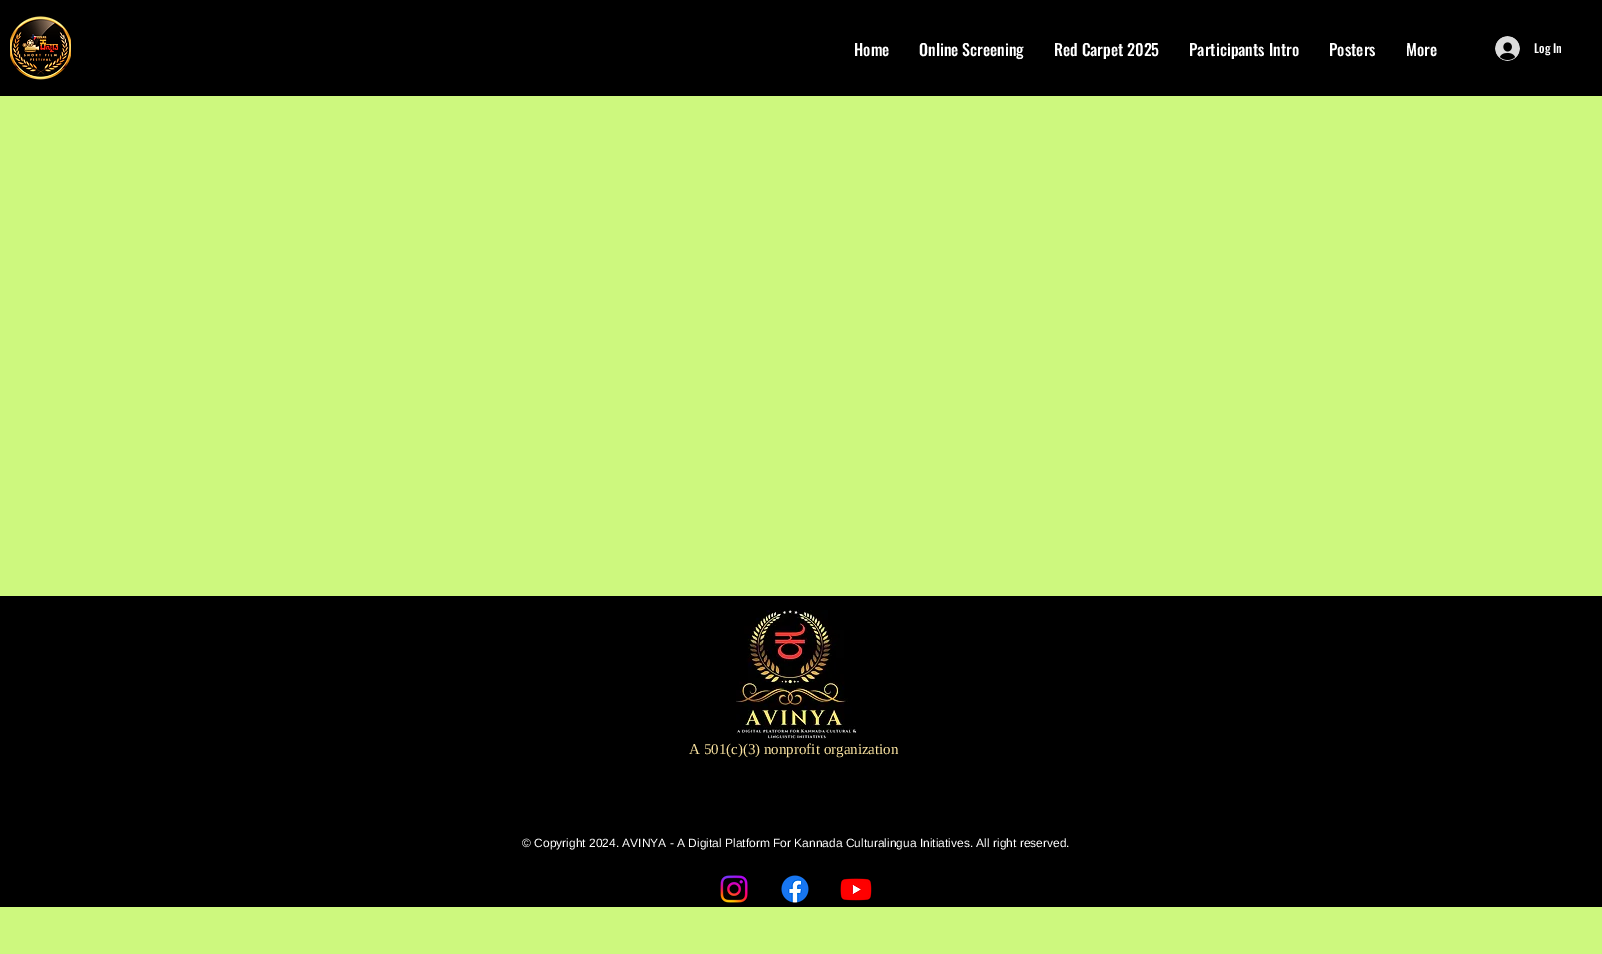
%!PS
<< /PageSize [1602 954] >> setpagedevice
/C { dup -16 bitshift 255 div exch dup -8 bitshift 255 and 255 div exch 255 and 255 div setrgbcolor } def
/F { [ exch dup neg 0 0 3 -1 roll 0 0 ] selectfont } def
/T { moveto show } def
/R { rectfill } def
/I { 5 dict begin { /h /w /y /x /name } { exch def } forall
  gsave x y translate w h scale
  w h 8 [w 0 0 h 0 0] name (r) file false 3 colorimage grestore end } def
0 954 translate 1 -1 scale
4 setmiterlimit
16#CDF87E C
0 0 1602 954 R
16#000000 C
0 0 1602 96 R
(1.rgb) 10 16 61 64 I
/Oswald-Medium 16 F
16#FFFFFF C
(Home) 854 56 T
(Online Screening) 919 56 T
(Red Carpet 2025) 1054 56 T
(Participants Intro) 1189 56 T
(Posters) 1329 56 T
(More) 1406 56 T
(2.rgb) 1495 36 25 25 I
/Oswald-Medium 12 F
(Log In) 1534 53 T
16#000000 C
0 596 1602 311 R
(3.rgb) 736 610 121 129 I
/LiberationSerif-Regular 15 F
16#F8E19F C
(A 501\(c\)\(3\) nonprofit organization) 689 754 T
/LiberationSans-Regular 12 F
16#FFFFFF C
(© Copyright 2024. AVINYA - A Digital Platform For Kannada Culturalingua Initiatives. All right reserved.) 522 847 T
(4.rgb) 720 875 28 28 I
(5.rgb) 781 875 28 28 I
(6.rgb) 840 878 32 23 I
showpage
